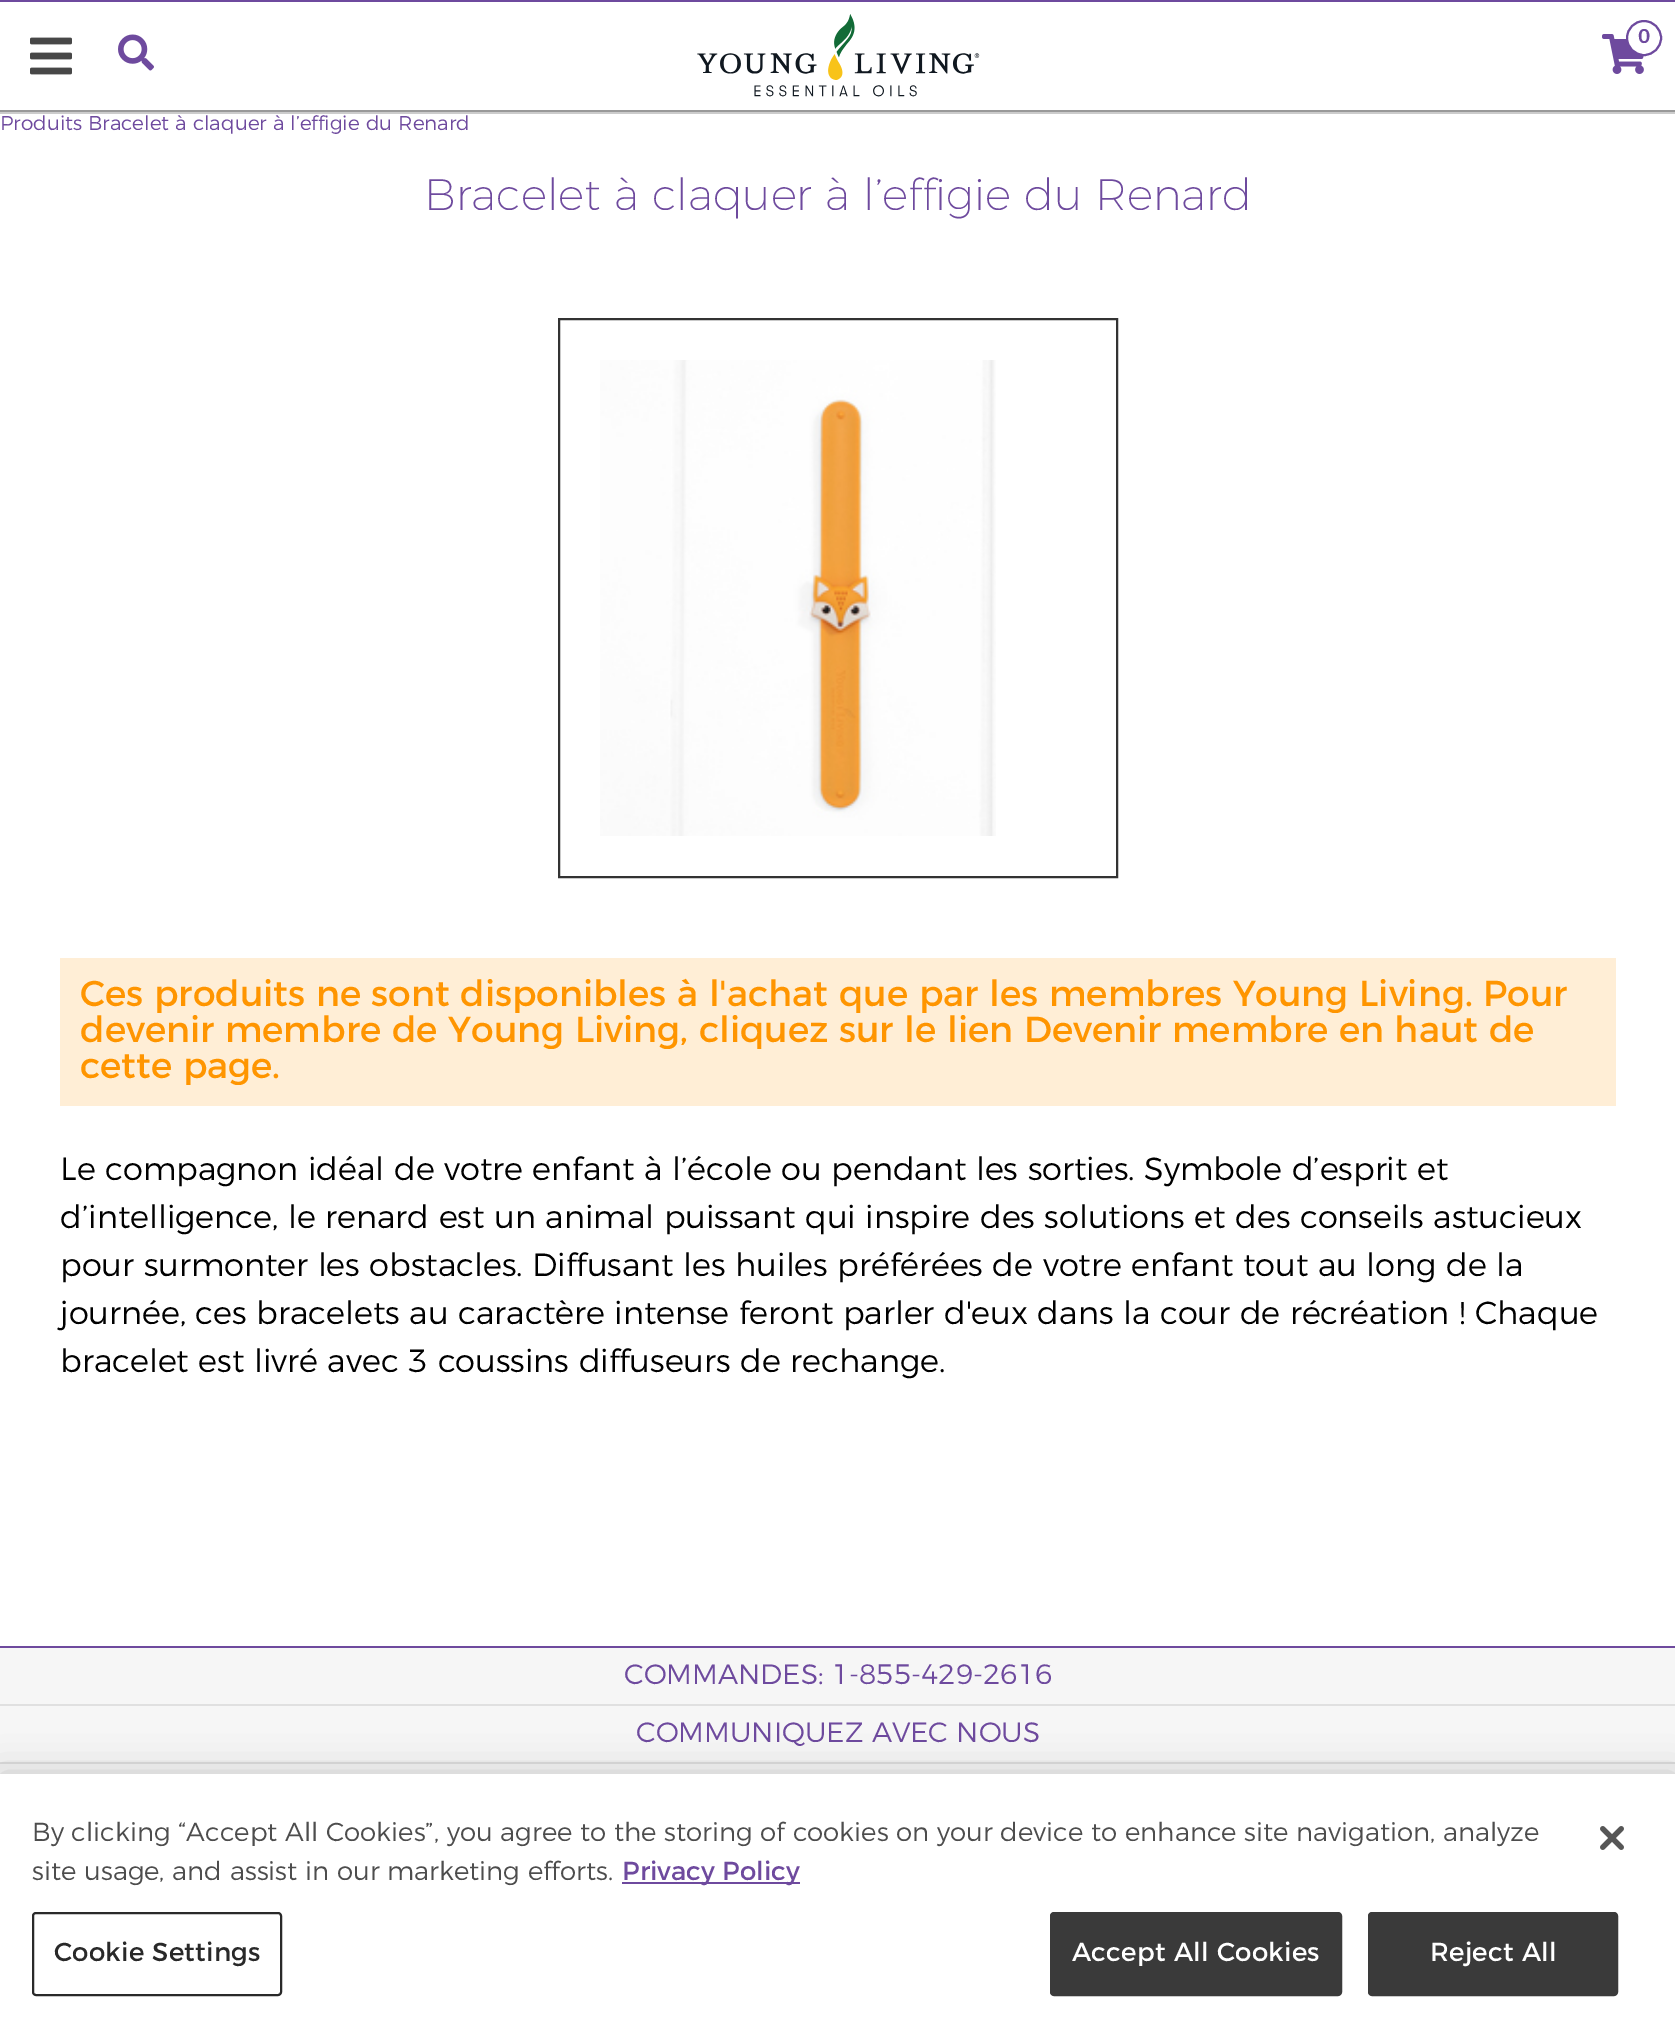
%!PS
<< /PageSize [1675 2021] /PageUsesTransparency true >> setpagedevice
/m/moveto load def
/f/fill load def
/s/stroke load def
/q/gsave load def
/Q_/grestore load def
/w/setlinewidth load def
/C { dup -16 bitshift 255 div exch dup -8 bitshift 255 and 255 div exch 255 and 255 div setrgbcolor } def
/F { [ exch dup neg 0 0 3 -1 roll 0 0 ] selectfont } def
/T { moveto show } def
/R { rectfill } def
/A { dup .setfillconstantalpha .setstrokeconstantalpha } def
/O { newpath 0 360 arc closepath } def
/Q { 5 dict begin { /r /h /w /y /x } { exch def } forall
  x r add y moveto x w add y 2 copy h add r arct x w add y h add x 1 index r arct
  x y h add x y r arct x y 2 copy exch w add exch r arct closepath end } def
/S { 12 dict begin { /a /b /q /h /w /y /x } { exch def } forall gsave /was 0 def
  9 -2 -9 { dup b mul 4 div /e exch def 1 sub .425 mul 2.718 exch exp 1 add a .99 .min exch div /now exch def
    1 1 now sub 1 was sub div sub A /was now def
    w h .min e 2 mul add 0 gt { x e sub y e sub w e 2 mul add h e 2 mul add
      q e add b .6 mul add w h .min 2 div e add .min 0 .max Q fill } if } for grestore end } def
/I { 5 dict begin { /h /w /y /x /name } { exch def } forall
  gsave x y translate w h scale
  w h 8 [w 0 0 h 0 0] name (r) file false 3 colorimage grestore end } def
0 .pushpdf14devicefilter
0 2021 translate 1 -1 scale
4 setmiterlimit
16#FFFFFF C
0 0 1675 2021 R
16#6E4A9E C
0 0 1675 2 R
16#999999 C
0 110 1675 2 R
(1.rgb) 30 37 42 38 I
(2.rgb) 118 34 36 37 I
(3.rgb) 697 14 283 83 I
(4.rgb) 1602 34 42 40 I
16#FFFFFF C
1644 38 17 O q f Q_
16#6E4A9E C
2 w
s
/Montserrat-Medium 20 F
(0) 1638 43 T
16#CCCCCC C
0 112 1675 2 R
/Montserrat-Light 20 F
16#6E4A9E C
(Produits Bracelet à claquer à l’effigie du Renard) 0 130 T
/Montserrat-ExtraLight 44 F
(Bracelet à claquer à l’effigie du Renard) 424 210 T
16#333333 C
559 319 558 558 rectstroke
(5.rgb) 600 360 396 476 I
16#FFEED6 C
60 958 1556 148 R
/Montserrat-Regular 36 F
16#FF9500 C
(Ces produits ne sont disponibles à l'achat que par les membres Young Living. Pour) 80 1006 T
(devenir membre de Young Living, cliquez sur le lien Devenir membre en haut de) 80 1042 T
(cette page.) 80 1078 T
/Montserrat-Light 32 F
16#000000 C
(Le compagnon idéal de votre enfant à l’école ou pendant les sorties. Symbole d’esprit et) 60 1180 T
(d’intelligence, le renard est un animal puissant qui inspire des solutions et des conseils astucieux) 60 1228 T
(pour surmonter les obstacles. Diffusant les huiles préférées de votre enfant tout au long de la) 60 1276 T
(journée, ces bracelets au caractère intense feront parler d'eux dans la cour de récréation ! Chaque) 60 1324 T
(bracelet est livré avec 3 coussins diffuseurs de rechange.) 60 1372 T
16#6E4A9E C
0 1646 1675 2 R
16#F6F6F6 C
0 1648 1675 126 R
16#E0E0E0 C
0 1704 1675 2 R
/Montserrat-Light 28 F
16#6E4A9E C
(COMMANDES: 1-855-429-2616) 624 1684 T
16#E0E0E0 C
0 1762 1675 2 R
16#6E4A9E C
(COMMUNIQUEZ AVEC NOUS) 636 1742 T
16#000000 C
0 1774 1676 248 0 18 .2 S
16#FFFFFF C
0 1774 1675 247 R
/Montserrat-Light 26.02 F
16#4D4D4D C
(By clicking “Accept All Cookies”, you agree to the storing of cookies on your device to enhance site navigation, analyze) 32 1841 T
(site usage, and assist in our marketing efforts.) 32 1880 T
16#6E4A9E C
622 1882 178 2 R
/Montserrat-Regular 26.02 F
(Privacy Policy) 622 1880 T
16#292929 C
33 1913 248 82 3 Q s
54 1961 m .25 0 (Cookie Settings) ashow
16#3A3A3A C
1051 1913 290 82 3 Q q f Q_
s
16#FFFFFF C
1072 1961 m .25 0 (Accept All Cookies) ashow
16#3A3A3A C
1369 1913 248 82 3 Q q f Q_
s
16#FFFFFF C
1430 1961 m .25 0 (Reject All) ashow
(6.rgb) 1600 1826 24 24 I
.poppdf14devicefilter showpage
